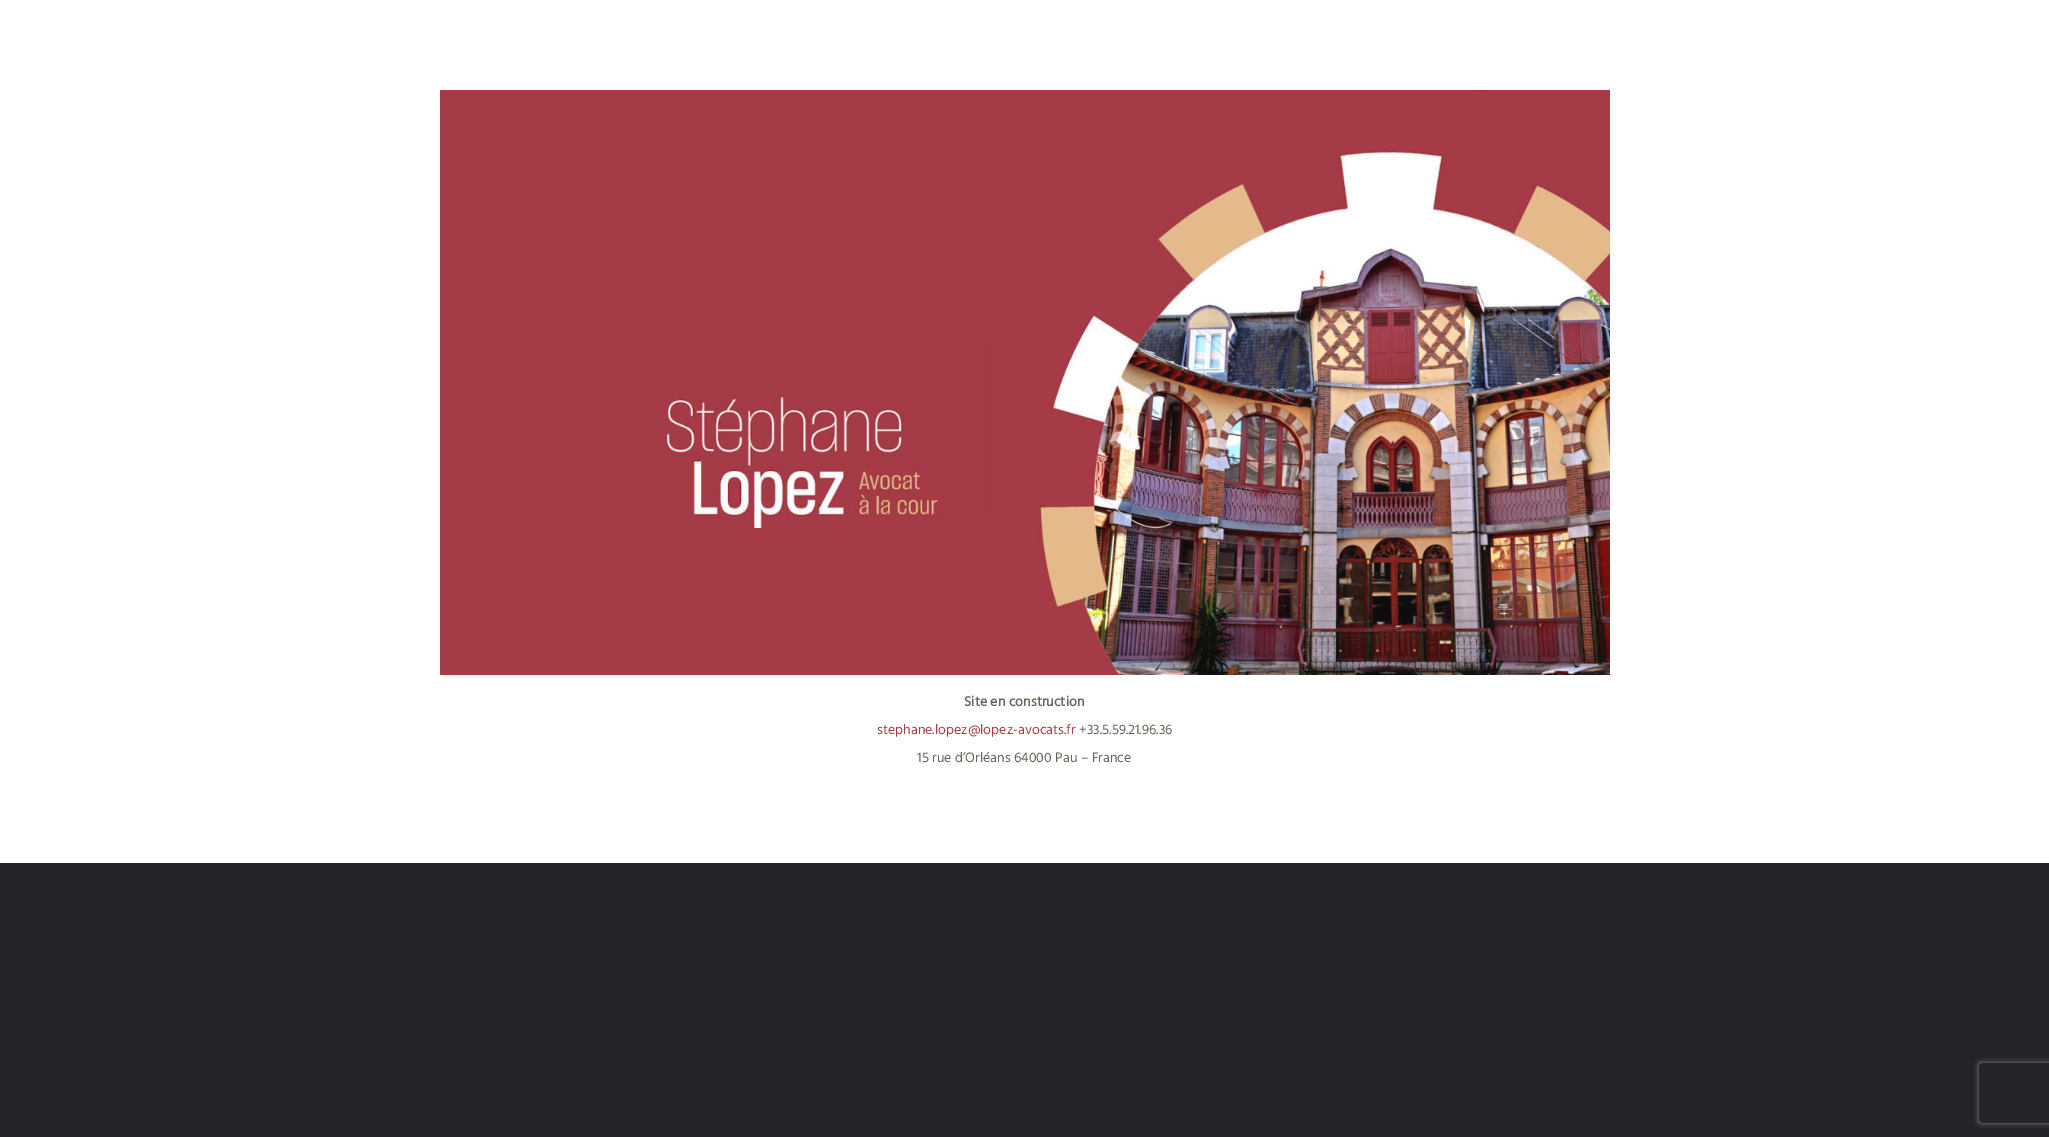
%!PS
<< /PageSize [2049 1137] /PageUsesTransparency true >> setpagedevice
/m/moveto load def
/l/rlineto load def
/c/rcurveto load def
/z/closepath load def
/q/gsave load def
/Q_/grestore load def
/C { dup -16 bitshift 255 div exch dup -8 bitshift 255 and 255 div exch 255 and 255 div setrgbcolor } def
/F { [ exch dup neg 0 0 3 -1 roll 0 0 ] selectfont } def
/T { moveto show } def
/R { rectfill } def
/A { dup .setfillconstantalpha .setstrokeconstantalpha } def
/Q { 5 dict begin { /r /h /w /y /x } { exch def } forall
  x r add y moveto x w add y 2 copy h add r arct x w add y h add x 1 index r arct
  x y h add x y r arct x y 2 copy exch w add exch r arct closepath end } def
/S { 12 dict begin { /a /b /q /h /w /y /x } { exch def } forall gsave /was 0 def
  9 -2 -9 { dup b mul 4 div /e exch def 1 sub .425 mul 2.718 exch exp 1 add a .99 .min exch div /now exch def
    1 1 now sub 1 was sub div sub A /was now def
    w h .min e 2 mul add 0 gt { x e sub y e sub w e 2 mul add h e 2 mul add
      q e add b .6 mul add w h .min 2 div e add .min 0 .max Q fill } if } for grestore end } def
/I { 5 dict begin { /h /w /y /x /name } { exch def } forall
  gsave x y translate w h scale
  w h 8 [w 0 0 h 0 0] name (r) file false 3 colorimage grestore end } def
0 .pushpdf14devicefilter
0 1137 translate 1 -1 scale
4 setmiterlimit
16#232528 C
0 0 2049 1137 R
16#FFFFFF C
0 0 2049 863 R
(1.rgb) 440 90 1170 585 I
/Hind-Bold 14 F
16#67655C C
(Site en construction) 964 706 T
/Hind-Regular 14 F
16#A63C45 C
(stephane.lopez@lopez-avocats.fr) 877 734 T
16#67655C C
(+33.5.59.21.96.36) 1079 734 T
(15 rue d’Orléans 64000 Pau – France) 917 762 T
q
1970 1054 m 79 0 l 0 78 l -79 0 l z 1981 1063 m 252 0 l 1 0 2 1 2 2 c 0 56 l 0 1 -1 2 -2 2 c -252 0 l -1 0 -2 -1 -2 -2 c 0 -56 l 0 -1 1 -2 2 -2 c z eoclip newpath
16#868686 C
1979 1063 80 60 2 2.5 1 S
Q_
.poppdf14devicefilter showpage
